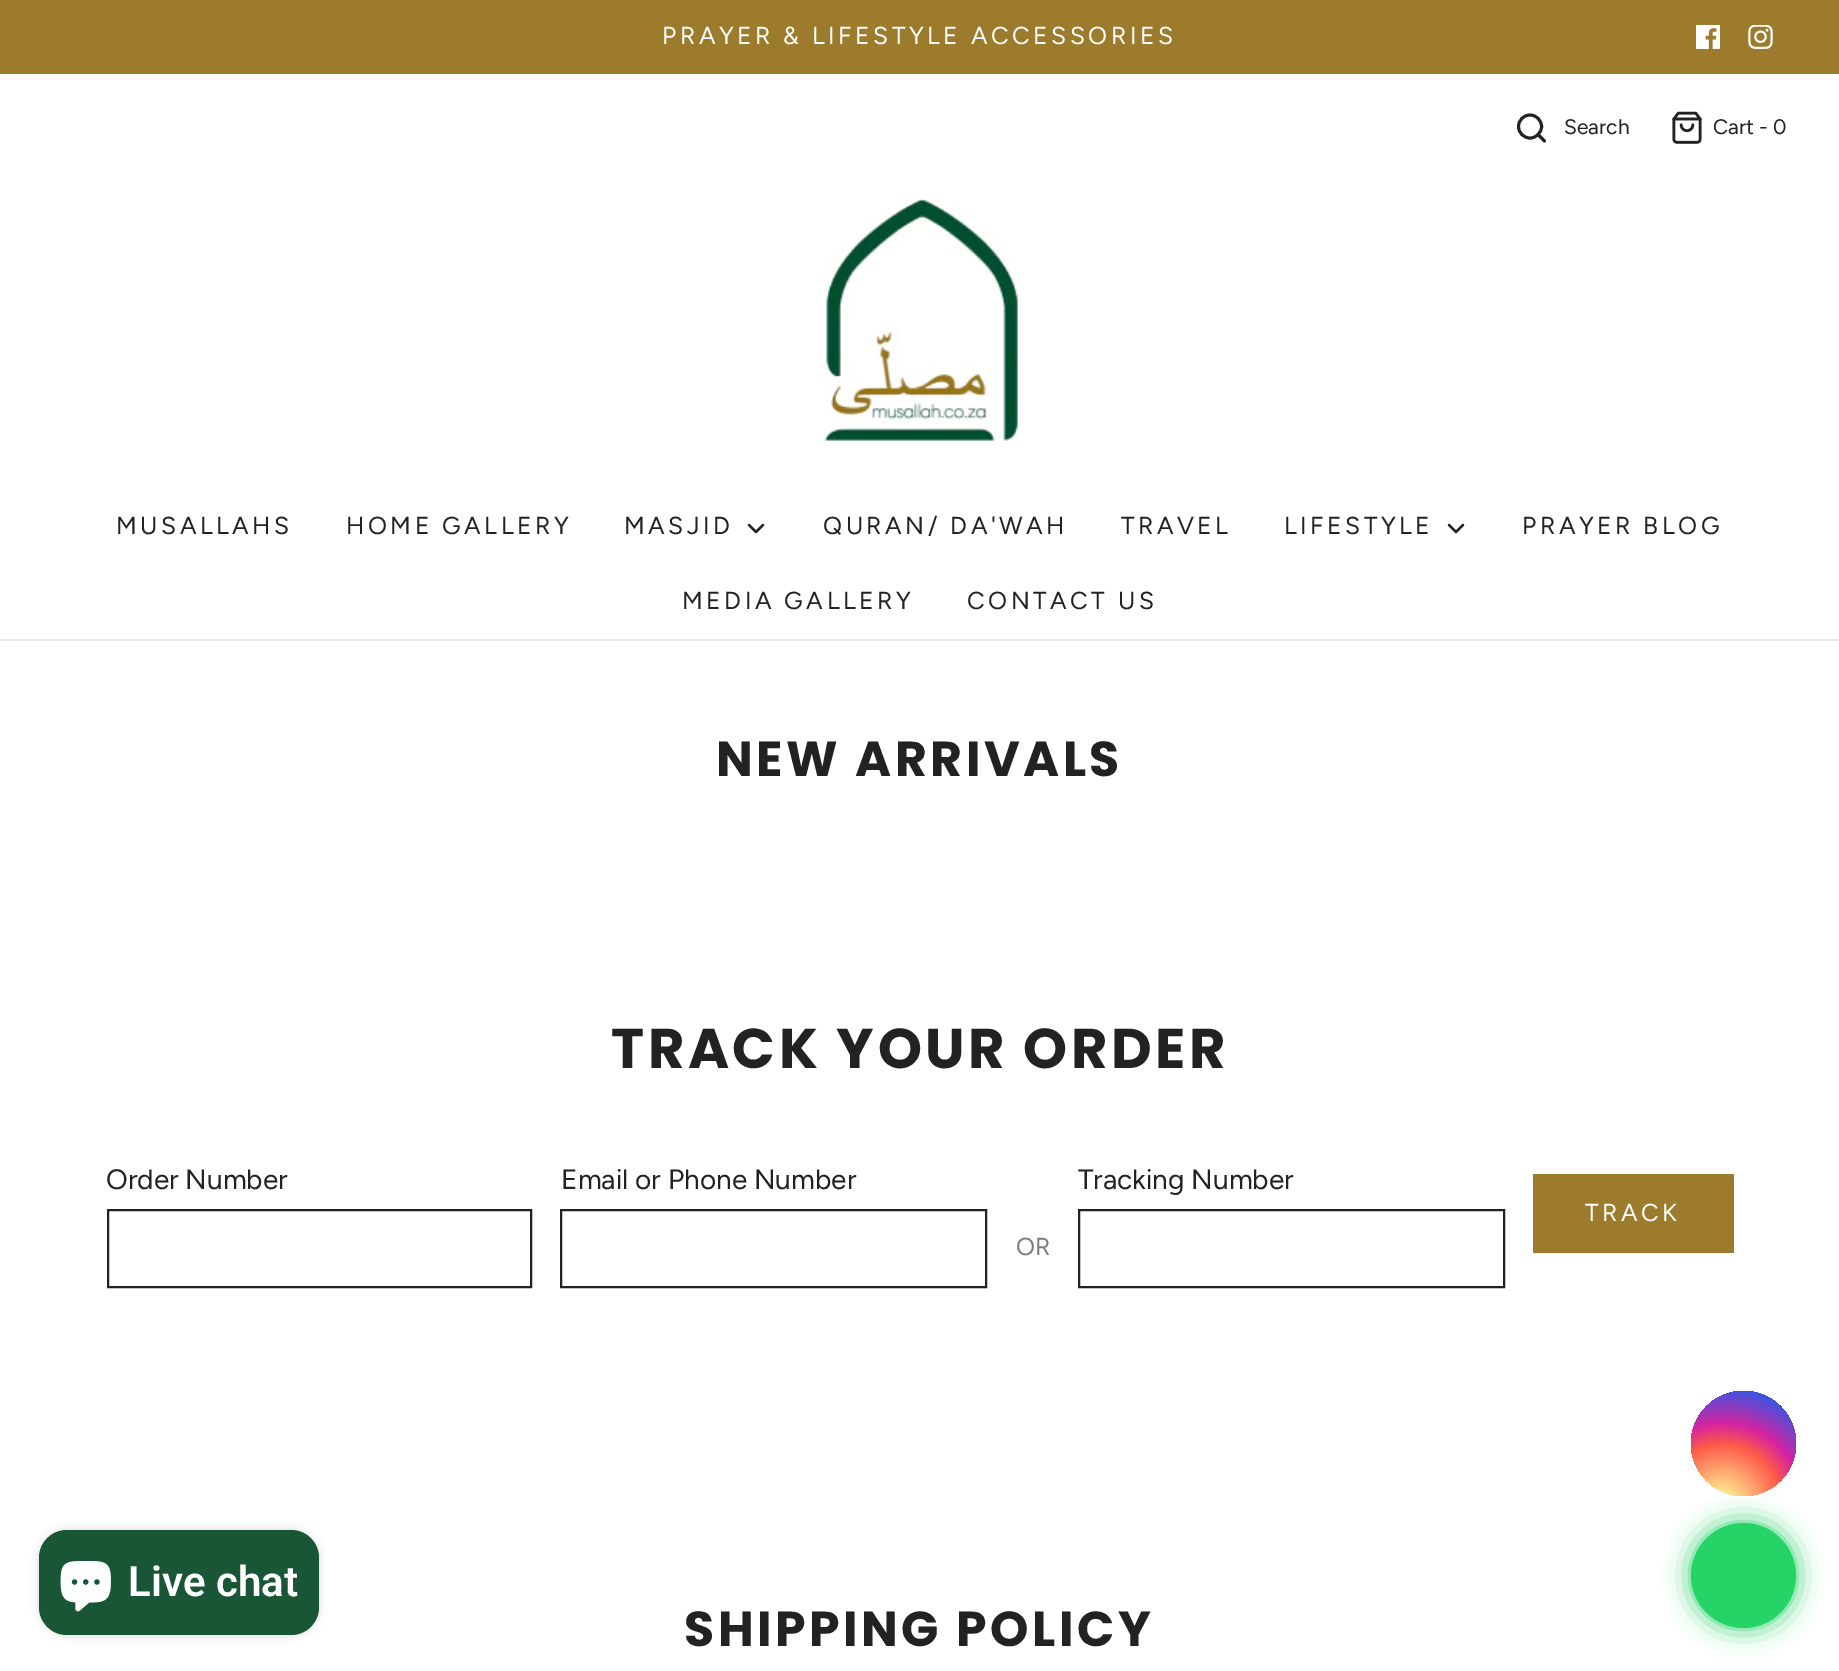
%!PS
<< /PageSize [1839 1671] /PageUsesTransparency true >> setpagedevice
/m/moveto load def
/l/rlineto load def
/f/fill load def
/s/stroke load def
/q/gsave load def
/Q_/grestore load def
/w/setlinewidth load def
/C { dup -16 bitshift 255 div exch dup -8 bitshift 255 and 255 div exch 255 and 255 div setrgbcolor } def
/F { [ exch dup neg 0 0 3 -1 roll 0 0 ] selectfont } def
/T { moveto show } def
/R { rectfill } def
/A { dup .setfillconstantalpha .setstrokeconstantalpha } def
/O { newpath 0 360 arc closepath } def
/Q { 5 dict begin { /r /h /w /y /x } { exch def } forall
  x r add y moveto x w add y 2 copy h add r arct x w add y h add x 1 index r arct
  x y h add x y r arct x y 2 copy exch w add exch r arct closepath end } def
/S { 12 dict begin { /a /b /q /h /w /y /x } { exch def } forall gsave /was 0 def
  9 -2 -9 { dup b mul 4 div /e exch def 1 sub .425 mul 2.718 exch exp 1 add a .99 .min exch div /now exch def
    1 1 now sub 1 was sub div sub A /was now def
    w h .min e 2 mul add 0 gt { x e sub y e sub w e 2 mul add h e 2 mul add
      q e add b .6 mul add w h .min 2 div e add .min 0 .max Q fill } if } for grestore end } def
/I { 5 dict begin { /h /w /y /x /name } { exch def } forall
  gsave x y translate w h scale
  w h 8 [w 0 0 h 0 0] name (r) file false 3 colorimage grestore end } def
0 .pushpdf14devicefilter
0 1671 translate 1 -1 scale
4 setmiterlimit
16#FFFFFF C
0 0 1839 1671 R
16#9D7B2C C
0 0 1839 74 R
/Figtree-Regular 24.5 F
16#FFFFFF C
662 44 m 3.5 0 (PRAYER & LIFESTYLE ACCESSORIES) ashow
(1.rgb) 1696 25 24 24 I
(2.rgb) 1748 25 25 24 I
16#E9E9E9 C
0 639 1839 2 R
16#222222 C
2.9 w
1530 126.5 11.5 O s
/Figtree-Regular 21 F
(Search) 1564 134 T
1 setlinecap
1 setlinejoin
1544.5 141 m -6.5 -6.5 l s
(3.rgb) 1672 111 30 33 I
(Cart - 0) 1713 134 T
(4.rgb) 821 198 199 244 I
/Figtree-Regular 24.5 F
116 534 m 3.5 0 (MUSALLAHS) ashow
346 534 m 3.5 0 (HOME GALLERY) ashow
624 534 m 3.5 0 (MASJID) ashow
2.3 w
749 525 m 7 7 l 7 -7 l s
823 534 m 3.5 0 (QURAN/ DA'WAH) ashow
1121 534 m 3.5 0 (TRAVEL) ashow
1284 534 m 3.5 0 (LIFESTYLE) ashow
1449 525 m 7 7 l 7 -7 l s
1522 534 m 3.5 0 (PRAYER BLOG) ashow
682 609 m 3.5 0 (MEDIA GALLERY) ashow
967 609 m 3.5 0 (CONTACT US) ashow
/Poppins-Bold 49 F
716 776 m 3.5 0 (NEW ARRIVALS) ashow
/Poppins-Bold 56 F
611 1068 m 3.5 0 (TRACK YOUR ORDER) ashow
/Figtree-Regular 28 F
(Order Number) 106 1189 T
2 w
0 setlinecap
0 setlinejoin
108 1210 423 77 rectstroke
(Email or Phone Number) 561 1189 T
561 1210 425 77 rectstroke
(Tracking Number) 1078 1189 T
1079 1210 425 77 rectstroke
16#9D7B2C C
1533 1174 201 79 R
/Figtree-Regular 24.5 F
16#FFFFFF C
1585 1221 m 3.5 0 (TRACK) ashow
16#7A7A7A C
(OR) 1016 1255 T
/Poppins-Bold 49 F
16#222222 C
684 1646 m 3.5 0 (SHIPPING POLICY) ashow
16#25D366 C
1691 1523 105 105 52.5 13 1 S
q 1743.5 1443.5 52.5 O clip newpath 1722 1504 translate 134 134 scale
<< /ShadingType 3 /ColorSpace /DeviceRGB /Coords [0 0 0 0 0 1] /Extend [true true] /Function << /FunctionType 3 /Domain [0 1] /Functions [<< /FunctionType 2 /Domain [0 1] /C0 [.992 .957 .592] /C1 [.992 .957 .592] /N 1 >> << /FunctionType 2 /Domain [0 1] /C0 [.992 .957 .592] /C1 [.992 .349 .286] /N 1 >> << /FunctionType 2 /Domain [0 1] /C0 [.992 .349 .286] /C1 [.839 .141 .624] /N 1 >> << /FunctionType 2 /Domain [0 1] /C0 [.839 .141 .624] /C1 [.157 .353 .922] /N 1 >> << /FunctionType 2 /Domain [0 1] /C0 [.157 .353 .922] /C1 [.157 .353 .922] /N 1 >>] /Bounds [.05 .45 .6 .9] /Encode [0 1 0 1 0 1 0 1 0 1] >> >> shfill Q_
16#000000 C
39 1530 280 105 28 4.5 .15 S
16#195635 C
39 1530 280 105 28 Q f
(5.rgb) 60 1561 51 51 I
/Roboto-SemiBold 42 F
16#FFFFFF C
(Live chat) 128 1596 T
16#25D366 C
1743.5 1575.5 52.5 O f
.poppdf14devicefilter showpage
